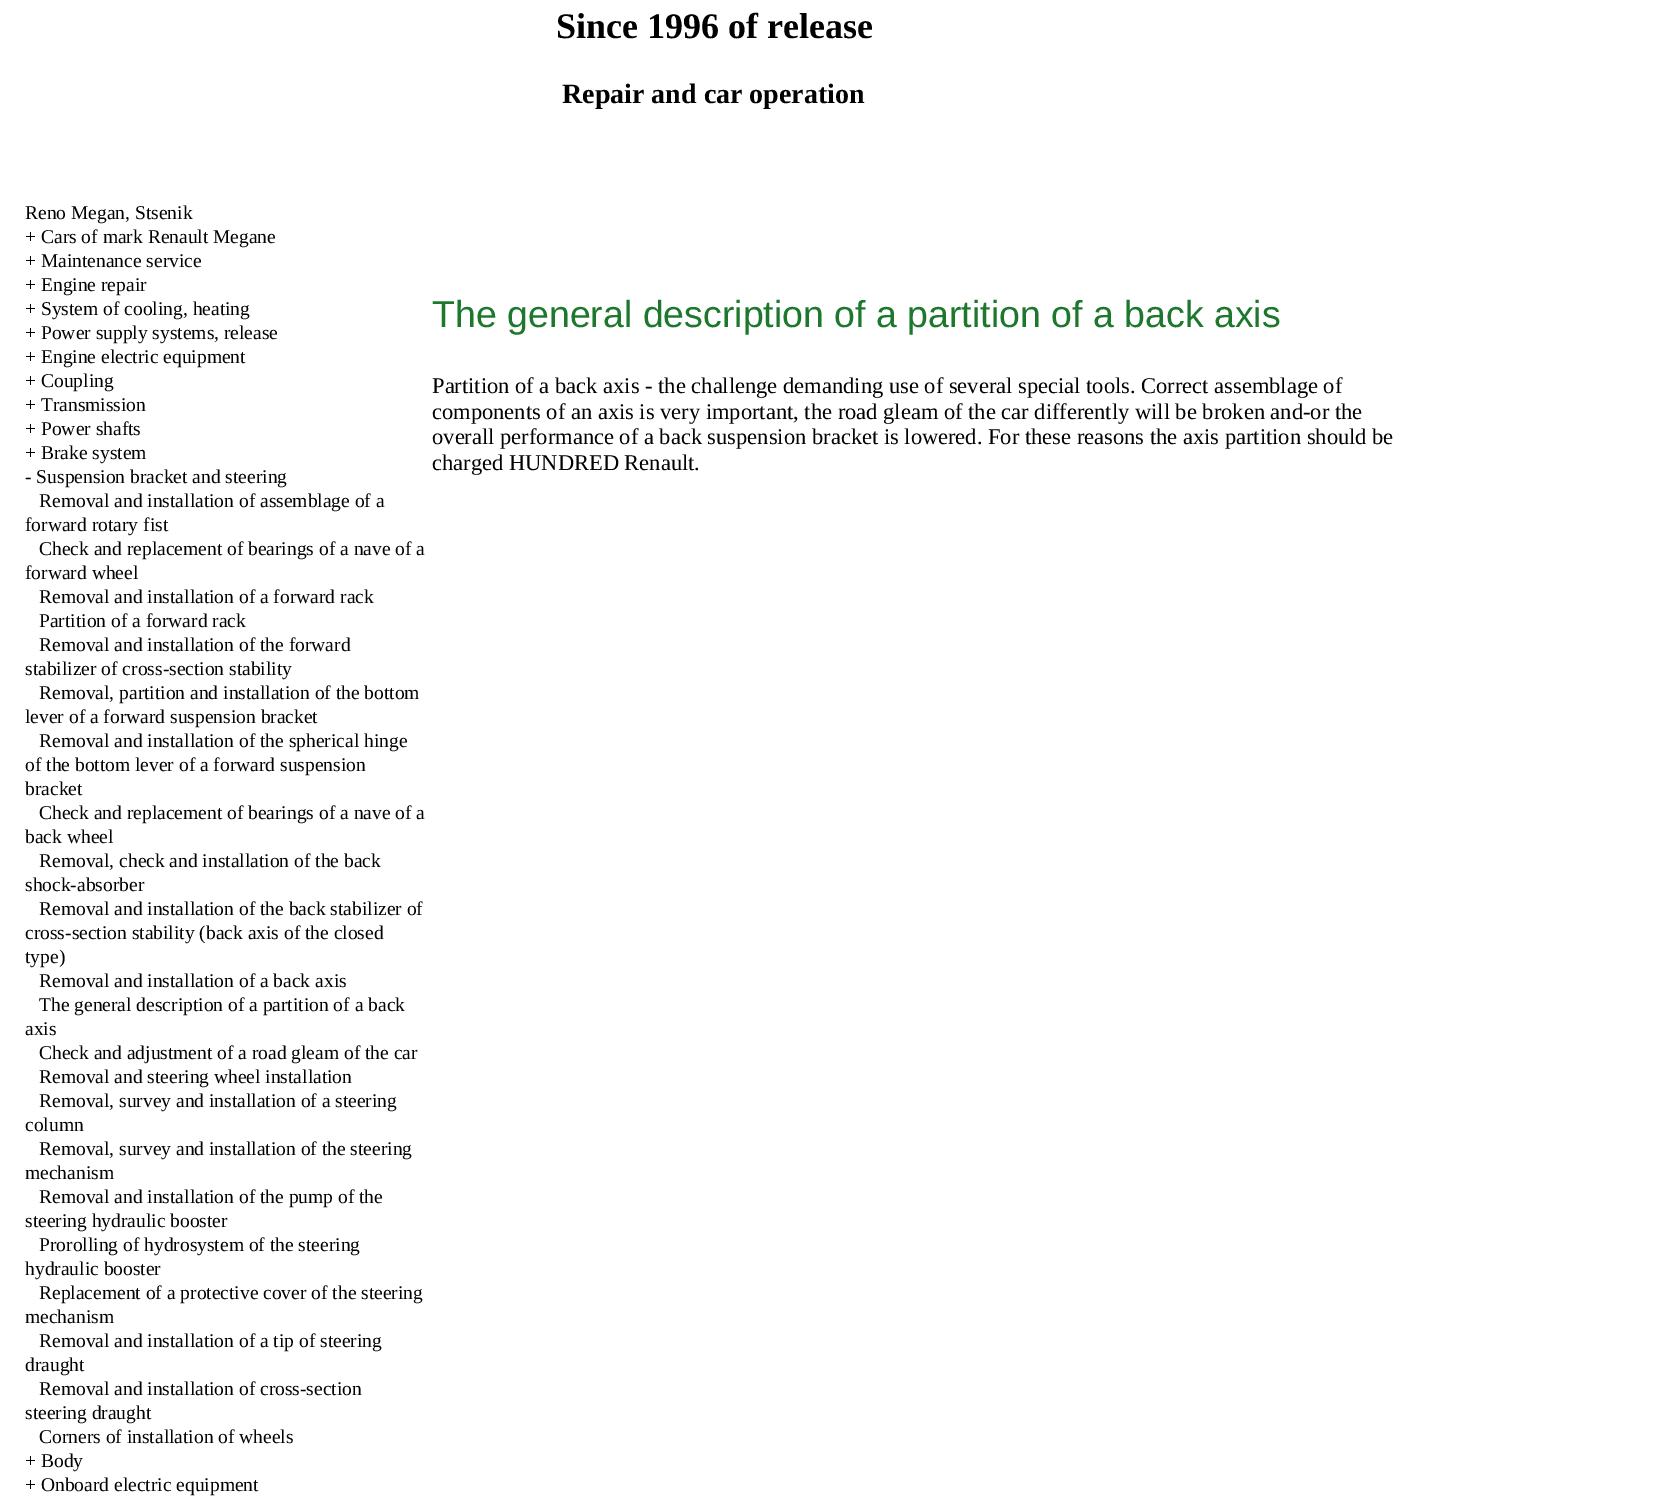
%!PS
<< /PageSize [1668 1499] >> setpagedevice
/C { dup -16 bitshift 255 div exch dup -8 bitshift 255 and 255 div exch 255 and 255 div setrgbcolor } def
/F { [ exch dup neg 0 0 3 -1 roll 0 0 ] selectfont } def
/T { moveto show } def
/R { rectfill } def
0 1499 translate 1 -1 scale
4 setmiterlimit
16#FFFFFF C
0 0 1668 1499 R
/LiberationSerif-Bold 36 F
16#000000 C
(Since 1996 of release) 556 38 T
/LiberationSerif-Bold 28 F
(Repair and car operation) 562 103 T
/LiberationSerif-Regular 19.5 F
(Reno Megan, Stsenik) 25 219 T
(+ Cars of mark Renault Megane) 25 243 T
(+ Maintenance service) 25 267 T
(+ Engine repair) 25 291 T
(+ System of cooling, heating) 25 315 T
(+ Power supply systems, release) 25 339 T
(+ Engine electric equipment) 25 363 T
(+ Coupling) 25 387 T
(+ Transmission) 25 411 T
(+ Power shafts) 25 435 T
(+ Brake system) 25 459 T
(- Suspension bracket and steering) 25 483 T
(Removal and installation of assemblage of a) 39 507 T
(forward rotary fist) 25 531 T
(Check and replacement of bearings of a nave of a) 39 555 T
(forward wheel) 25 579 T
(Removal and installation of a forward rack) 39 603 T
(Partition of a forward rack) 39 627 T
(Removal and installation of the forward) 39 651 T
(stabilizer of cross-section stability) 25 675 T
(Removal, partition and installation of the bottom) 39 699 T
(lever of a forward suspension bracket) 25 723 T
(Removal and installation of the spherical hinge) 39 747 T
(of the bottom lever of a forward suspension) 25 771 T
(bracket) 25 795 T
(Check and replacement of bearings of a nave of a) 39 819 T
(back wheel) 25 843 T
(Removal, check and installation of the back) 39 867 T
(shock-absorber) 25 891 T
(Removal and installation of the back stabilizer of) 39 915 T
(cross-section stability \(back axis of the closed) 25 939 T
(type\)) 25 963 T
(Removal and installation of a back axis) 39 987 T
(The general description of a partition of a back) 39 1011 T
(axis) 25 1035 T
(Check and adjustment of a road gleam of the car) 39 1059 T
(Removal and steering wheel installation) 39 1083 T
(Removal, survey and installation of a steering) 39 1107 T
(column) 25 1131 T
(Removal, survey and installation of the steering) 39 1155 T
(mechanism) 25 1179 T
(Removal and installation of the pump of the) 39 1203 T
(steering hydraulic booster) 25 1227 T
(Prorolling of hydrosystem of the steering) 39 1251 T
(hydraulic booster) 25 1275 T
(Replacement of a protective cover of the steering) 39 1299 T
(mechanism) 25 1323 T
(Removal and installation of a tip of steering) 39 1347 T
(draught) 25 1371 T
(Removal and installation of cross-section) 39 1395 T
(steering draught) 25 1419 T
(Corners of installation of wheels) 39 1443 T
(+ Body) 25 1467 T
(+ Onboard electric equipment) 25 1491 T
/LiberationSans-Regular 37.5 F
16#1D782E C
(The general description of a partition of a back axis) 432 327 T
/LiberationSerif-Regular 22.5 F
16#000000 C
(Partition of a back axis - the challenge demanding use of several special tools. Correct assemblage of) 432 393 T
(components of an axis is very important, the road gleam of the car differently will be broken and-or the) 432 419 T
(overall performance of a back suspension bracket is lowered. For these reasons the axis partition should be) 432 444 T
(charged HUNDRED Renault.) 432 470 T
showpage
